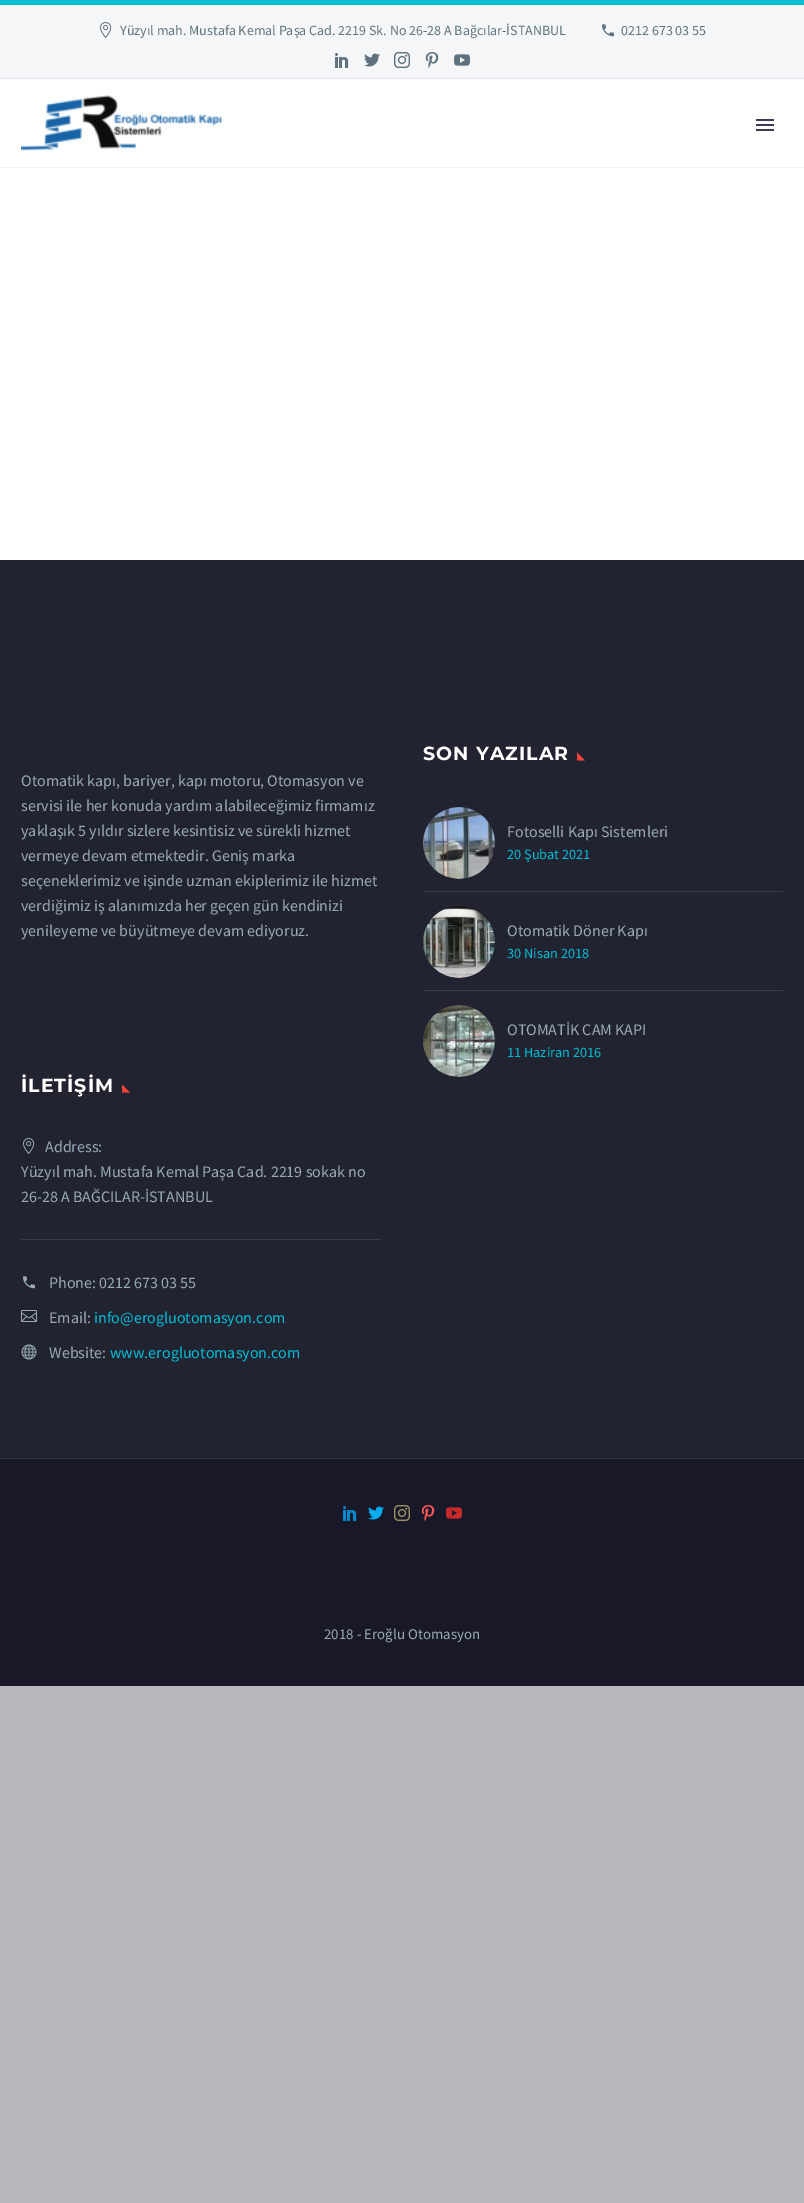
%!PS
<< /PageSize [804 2203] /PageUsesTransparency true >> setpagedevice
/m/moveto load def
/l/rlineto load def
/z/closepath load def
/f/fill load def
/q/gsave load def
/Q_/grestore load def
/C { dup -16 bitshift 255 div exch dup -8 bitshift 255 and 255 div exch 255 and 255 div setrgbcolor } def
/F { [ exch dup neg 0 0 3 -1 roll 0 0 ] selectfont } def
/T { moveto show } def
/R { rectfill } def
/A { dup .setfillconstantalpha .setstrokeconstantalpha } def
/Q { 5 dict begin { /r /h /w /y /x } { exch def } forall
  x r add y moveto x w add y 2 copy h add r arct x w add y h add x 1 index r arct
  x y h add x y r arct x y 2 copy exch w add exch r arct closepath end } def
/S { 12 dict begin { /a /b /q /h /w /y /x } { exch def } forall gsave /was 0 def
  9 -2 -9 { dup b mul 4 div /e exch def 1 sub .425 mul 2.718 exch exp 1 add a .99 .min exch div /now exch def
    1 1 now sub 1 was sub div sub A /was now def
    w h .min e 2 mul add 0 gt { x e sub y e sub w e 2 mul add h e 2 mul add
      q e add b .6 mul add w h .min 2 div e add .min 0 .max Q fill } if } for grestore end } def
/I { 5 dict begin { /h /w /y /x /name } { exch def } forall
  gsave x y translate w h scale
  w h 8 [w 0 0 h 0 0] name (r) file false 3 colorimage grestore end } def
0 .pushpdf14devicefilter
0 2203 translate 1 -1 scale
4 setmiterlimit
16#B9B8BE C
0 0 804 2203 R
16#FFFFFF C
0 79 804 481 R
q
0 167 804 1 rectclip
16#384554 C
0 0 804 167 0 1 .2 S
Q_
16#F4F6F7 C
0 5 804 73 R
16#00BCD4 C
0 0 804 5 R
16#DFE5E8 C
0 78 804 1 R
(1.rgb) 100 22 12 16 I
/SourceSansPro-Regular 14 F
16#5F727F C
(Yüzyıl mah. Mustafa Kemal Paşa Cad. 2219 Sk. No 26-28 A Bağcılar-İSTANBUL) 120 35 T
(2.rgb) 602 24 12 13 I
(0212 673 03 55) 621 35 T
(3.rgb) 335 53 14 15 I
(4.rgb) 364 53 16 14 I
(5.rgb) 394 52 16 16 I
(6.rgb) 425 52 14 16 I
(7.rgb) 454 54 16 12 I
(8.rgb) 21 95 201 56 I
16#3C3950 C
756 119 18 2 R
756 124 18 2 R
756 129 18 2 R
16#212331 C
0 560 804 898 R
/SourceSansPro-Regular 16 F
16#99A9B5 C
(Otomatik kapı, bariyer, kapı motoru, Otomasyon ve) 21 786 T
(servisi ile her konuda yardım alabileceğimiz firmamız) 21 811 T
(yaklaşık 5 yıldır sizlere kesintisiz ve sürekli hizmet) 21 836 T
(vermeye devam etmektedir. Geniş marka) 21 861 T
(seçeneklerimiz ve işinde uzman ekiplerimiz ile hizmet) 21 886 T
(verdiğimiz iş alanımızda her geçen gün kendinizi) 21 911 T
(yenileyeme ve büyütmeye devam ediyoruz.) 21 936 T
/Montserrat-Bold 19 F
16#FEFFFF C
423 760 m 1 0 (SON YAZILAR) ashow
16#F44336 C
577 752.5 m 0 8 l 8 0 l z f
16#393D50 C
423 891 360 1 R
(9.rgb) 423 807 72 72 I
/SourceSansPro-Regular 16 F
16#99A9B5 C
(Fotoselli Kapı Sistemleri) 507 837 T
/SourceSansPro-Regular 14.25 F
16#00BCD4 C
(20 Şubat 2021) 507 859 T
16#393D50 C
423 990 360 1 R
(10.rgb) 423 906 72 72 I
/SourceSansPro-Regular 16 F
16#99A9B5 C
(Otomatik Döner Kapı) 507 936 T
/SourceSansPro-Regular 14.25 F
16#00BCD4 C
(30 Nisan 2018) 507 958 T
(11.rgb) 423 1005 72 72 I
/SourceSansPro-Regular 16 F
16#99A9B5 C
(OTOMATİK CAM KAPI) 507 1035 T
/SourceSansPro-Regular 14.25 F
16#00BCD4 C
(11 Haziran 2016) 507 1057 T
/Montserrat-Bold 19 F
16#FEFFFF C
21 1092 m 1 0 (İLETİŞİM) ashow
16#F44336 C
122 1084.5 m 0 8 l 8 0 l z f
16#393D50 C
21 1239 360 1 R
(12.rgb) 23 1138 12 16 I
/SourceSansPro-Regular 16 F
16#99A9B5 C
(Address:) 45 1152 T
(Yüzyıl mah. Mustafa Kemal Paşa Cad. 2219 sokak no) 21 1177 T
(26-28 A BAĞCILAR-İSTANBUL) 21 1202 T
(13.rgb) 23 1276 12 13 I
(Phone: 0212 673 03 55) 49 1288 T
(14.rgb) 21 1310 16 12 I
(Email:) 49 1323 T
16#00BCD4 C
(info@erogluotomasyon.com) 94 1323 T
(15.rgb) 21 1344 16 16 I
16#99A9B5 C
(Website:) 49 1358 T
16#00BCD4 C
(www.erogluotomasyon.com) 110 1358 T
16#181828 C
0 1459 804 227 R
16#313646 C
0 1458 804 1 R
(16.rgb) 343 1506 14 15 I
(17.rgb) 368 1506 16 14 I
(18.rgb) 394 1505 16 16 I
(19.rgb) 421 1505 14 16 I
(20.rgb) 446 1507 16 12 I
/SourceSansPro-Regular 14.9 F
16#99A9B5 C
(2018 - Eroğlu Otomasyon) 324 1639 T
.poppdf14devicefilter showpage
